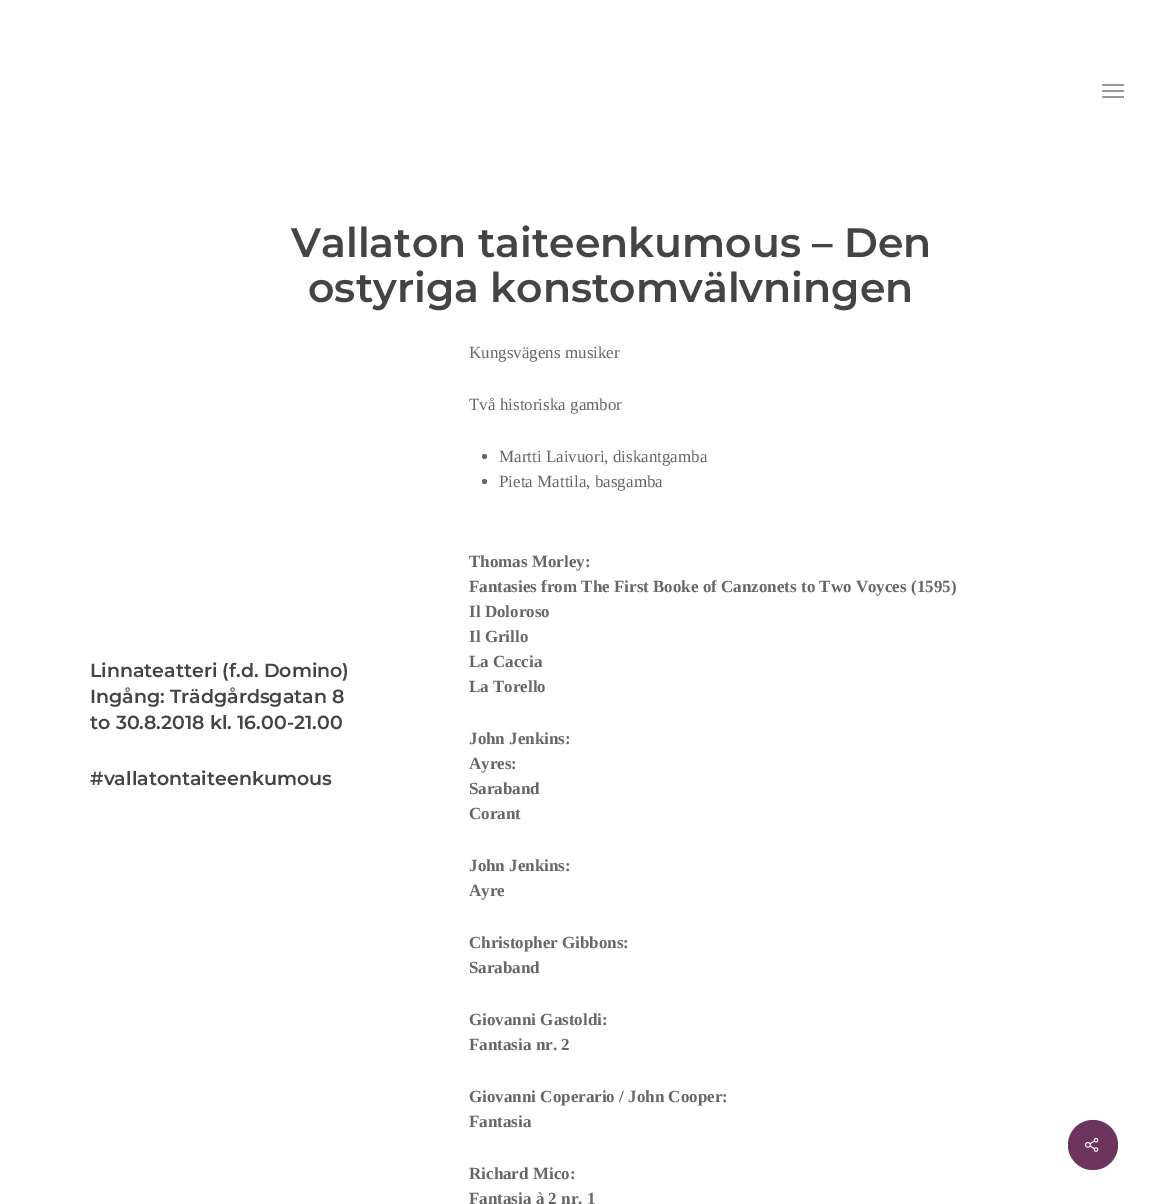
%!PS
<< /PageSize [1152 1204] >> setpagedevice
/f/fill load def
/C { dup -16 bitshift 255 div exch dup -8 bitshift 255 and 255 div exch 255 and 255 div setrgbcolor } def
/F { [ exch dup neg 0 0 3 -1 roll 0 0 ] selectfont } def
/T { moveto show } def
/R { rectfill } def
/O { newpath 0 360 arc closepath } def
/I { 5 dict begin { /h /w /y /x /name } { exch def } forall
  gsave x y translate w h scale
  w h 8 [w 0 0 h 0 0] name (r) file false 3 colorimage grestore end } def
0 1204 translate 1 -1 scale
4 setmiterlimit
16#FFFFFF C
0 0 1152 1204 R
16#999999 C
1102 84 22 2 R
1102 96 22 2 R
1102 90 22 2 R
/Montserrat-Thin 41 F
16#444444 C
(Vallaton taiteenkumous – Den) 291 257 T
(ostyriga konstomvälvningen) 308 302 T
/Montserrat-Thin 19 F
(Linnateatteri \(f.d. Domino\)) 90 677 T
(Ingång: Trädgårdsgatan 8) 90 703 T
(to 30.8.2018 kl. 16.00-21.00) 90 729 T
(#vallatontaiteenkumous) 90 785 T
/LiberationSerif-Regular 17 F
16#676767 C
(Kungsvägens musiker) 469 358 T
(Två historiska gambor) 469 410 T
484.5 456.5 2.5 O f
(Martti Laivuori, diskantgamba) 499 462 T
484.5 481.5 2.5 O f
(Pieta Mattila, basgamba) 499 487 T
/LiberationSerif-Bold 17 F
(Thomas Morley:) 469 567 T
(Fantasies from The First Booke of Canzonets to Two Voyces \(1595\)) 469 592 T
(Il Doloroso) 469 617 T
(Il Grillo) 469 642 T
(La Caccia) 469 667 T
(La Torello) 469 692 T
(John Jenkins:) 469 744 T
(Ayres:) 469 769 T
(Saraband) 469 794 T
(Corant) 469 819 T
(John Jenkins:) 469 871 T
(Ayre) 469 896 T
(Christopher Gibbons:) 469 948 T
(Saraband) 469 973 T
(Giovanni Gastoldi:) 469 1025 T
(Fantasia nr. 2) 469 1050 T
(Giovanni Coperario / John Cooper:) 469 1102 T
(Fantasia) 469 1127 T
(Richard Mico:) 469 1179 T
(Fantasia à 2 nr. 1) 469 1204 T
16#6D355E C
1093 1145 25 O f
(1.rgb) 1085 1137 14 15 I
showpage
